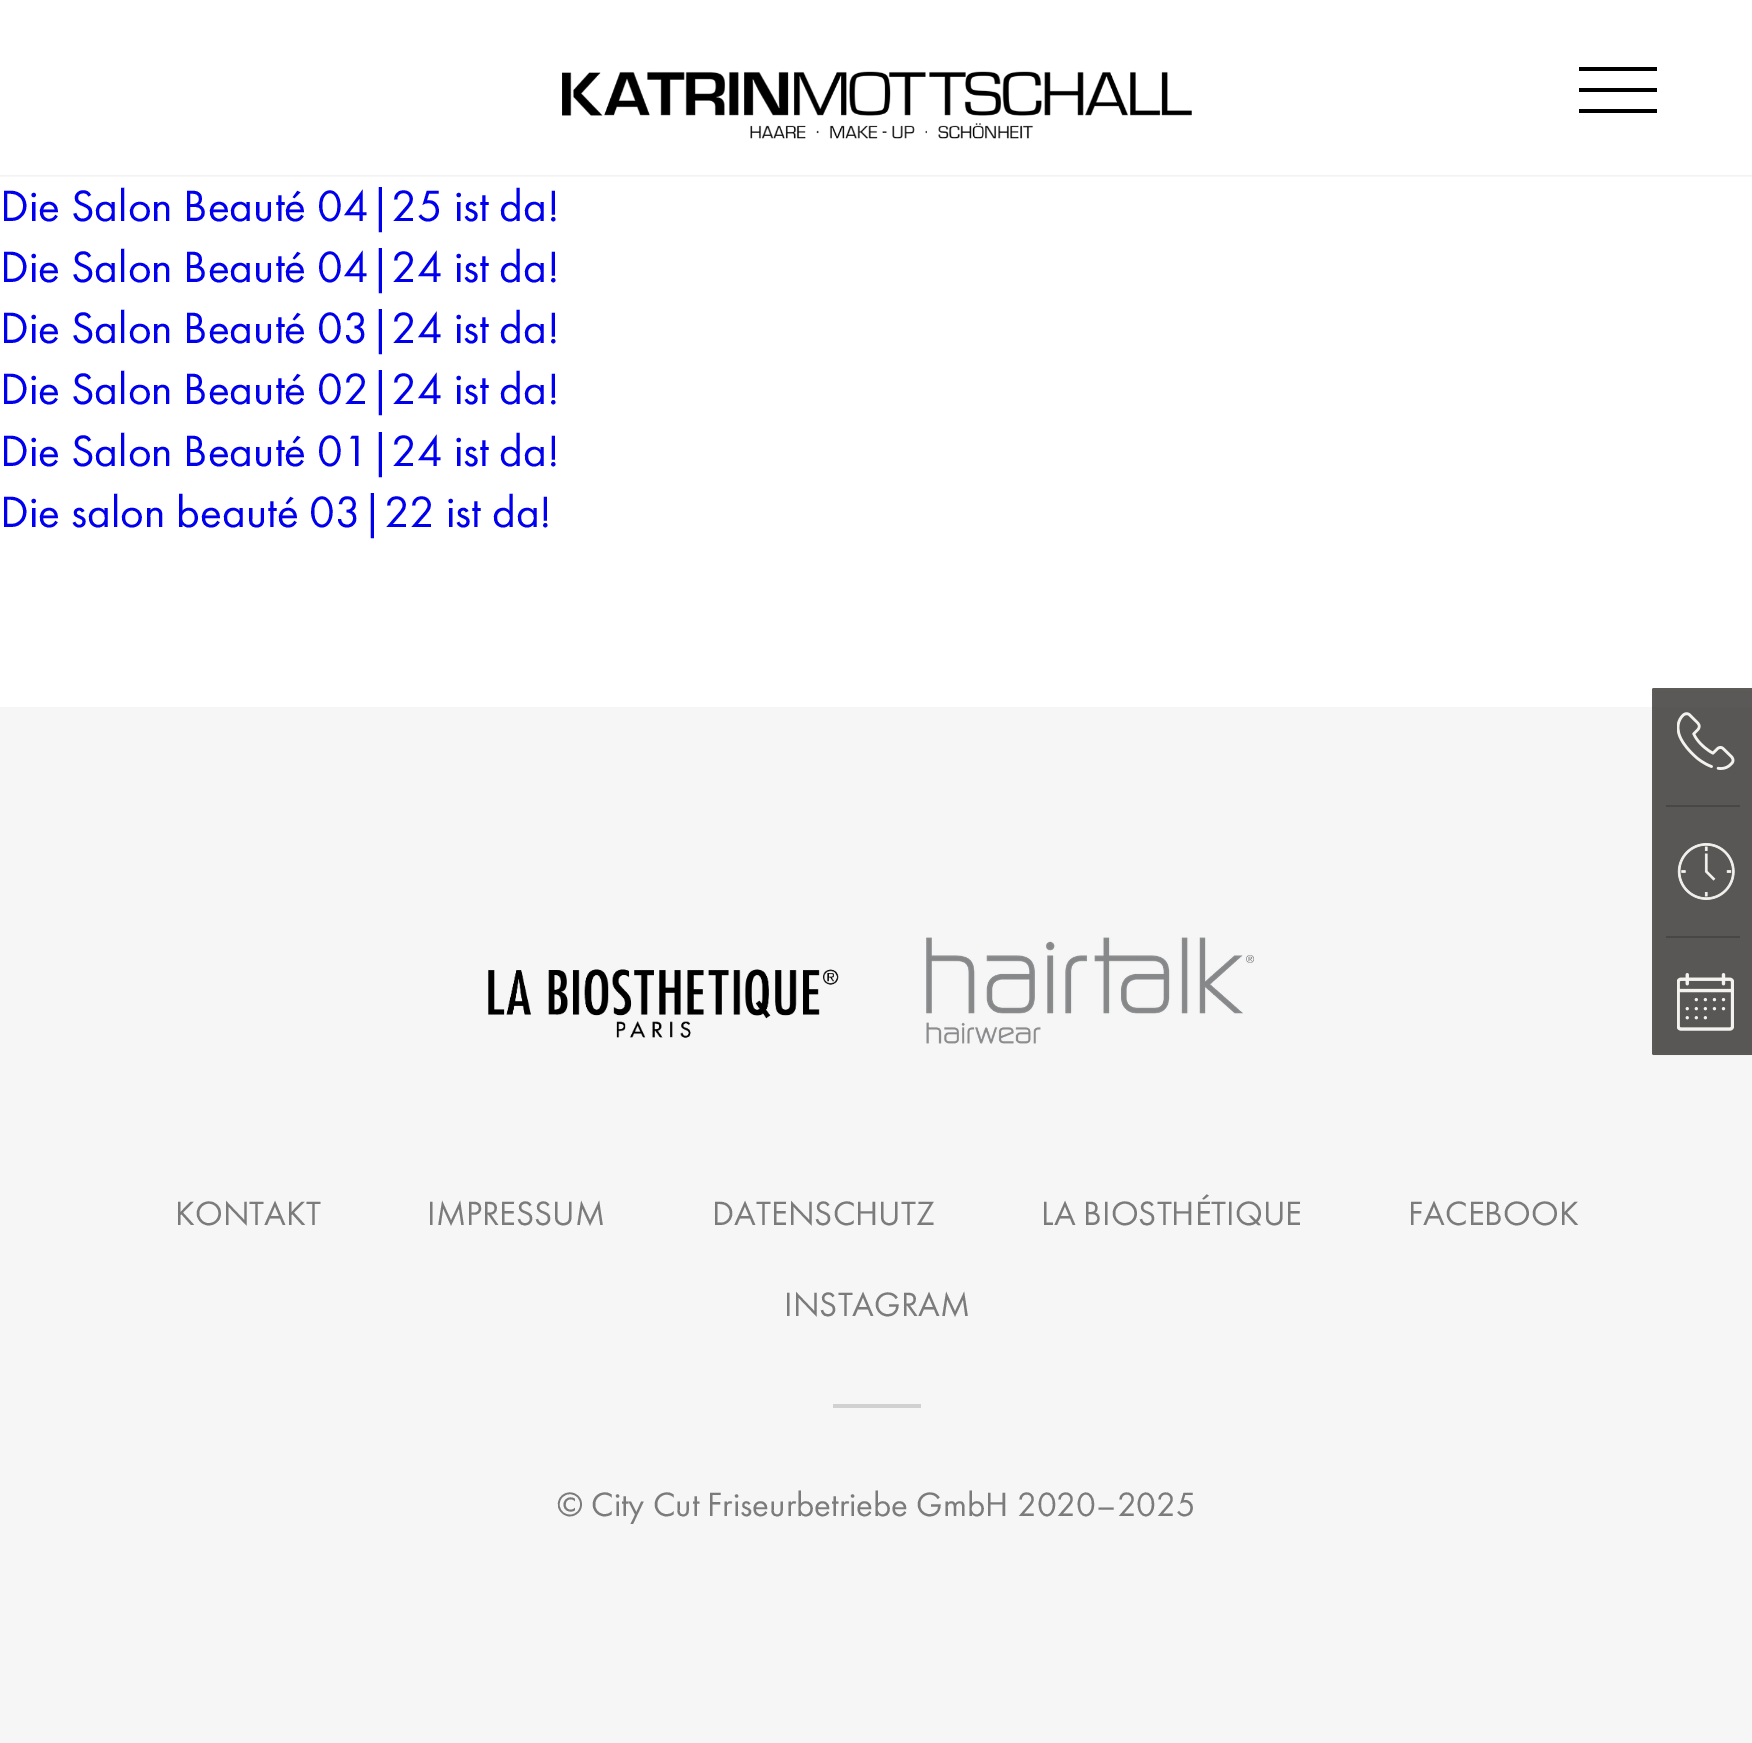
%!PS
<< /PageSize [1752 1743] /PageUsesTransparency true >> setpagedevice
/f/fill load def
/s/stroke load def
/q/gsave load def
/Q_/grestore load def
/w/setlinewidth load def
/C { dup -16 bitshift 255 div exch dup -8 bitshift 255 and 255 div exch 255 and 255 div setrgbcolor } def
/F { [ exch dup neg 0 0 3 -1 roll 0 0 ] selectfont } def
/T { moveto show } def
/R { rectfill } def
/A { dup .setfillconstantalpha .setstrokeconstantalpha } def
/Q { 5 dict begin { /r /h /w /y /x } { exch def } forall
  x r add y moveto x w add y 2 copy h add r arct x w add y h add x 1 index r arct
  x y h add x y r arct x y 2 copy exch w add exch r arct closepath end } def
/S { 12 dict begin { /a /b /q /h /w /y /x } { exch def } forall gsave /was 0 def
  9 -2 -9 { dup b mul 4 div /e exch def 1 sub .425 mul 2.718 exch exp 1 add a .99 .min exch div /now exch def
    1 1 now sub 1 was sub div sub A /was now def
    w h .min e 2 mul add 0 gt { x e sub y e sub w e 2 mul add h e 2 mul add
      q e add b .6 mul add w h .min 2 div e add .min 0 .max Q fill } if } for grestore end } def
/I { 5 dict begin { /h /w /y /x /name } { exch def } forall
  gsave x y translate w h scale
  w h 8 [w 0 0 h 0 0] name (r) file false 3 colorimage grestore end } def
0 .pushpdf14devicefilter
0 1743 translate 1 -1 scale
4 setmiterlimit
16#FFFFFF C
0 0 1752 1743 R
q
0 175 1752 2 rectclip
16#000000 C
0 0 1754 175 0 2.5 .1 S
Q_
(1.rgb) 562 71 630 68 I
16#000000 C
1579 88 78 4 R
1579 67 78 4 R
1579 109 78 4 R
/FuturaPT-Regular 45.5 F
16#0000EE C
(Die Salon Beauté 04|25 ist da!) 0 221 T
(Die Salon Beauté 04|24 ist da!) 0 282 T
(Die Salon Beauté 03|24 ist da!) 0 343 T
(Die Salon Beauté 02|24 ist da!) 0 404 T
(Die Salon Beauté 01|24 ist da!) 0 466 T
(Die salon beauté 03|22 ist da!) 0 527 T
16#F6F6F6 C
0 707 1752 1036 R
0.8 A
16#312F2D C
1652 688 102 367 2 Q f
0.1 A
16#796C61 C
2 w
1653 689 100 365 1 Q s
1 A
(2.rgb) 1677 712 58 58 I
16#494745 C
1666 805 74 2 R
(3.rgb) 1677 843 58 57 I
1666 936 74 2 R
(4.rgb) 1677 973 57 58 I
(5.rgb) 488 969 351 69 I
(6.rgb) 926 937 328 107 I
/FuturaPT-Regular 35 F
16#7B7B7B C
(KONTAKT) 175 1225 T
(IMPRESSUM) 427 1225 T
(DATENSCHUTZ) 712 1225 T
(LA BIOSTHÉTIQUE) 1041 1225 T
(FACEBOOK) 1408 1225 T
(INSTAGRAM) 784 1316 T
16#D1D1D1 C
833 1404 88 4 R
16#7B7B7B C
(© City Cut Friseurbetriebe GmbH 2020–2025) 557 1516 T
.poppdf14devicefilter showpage
